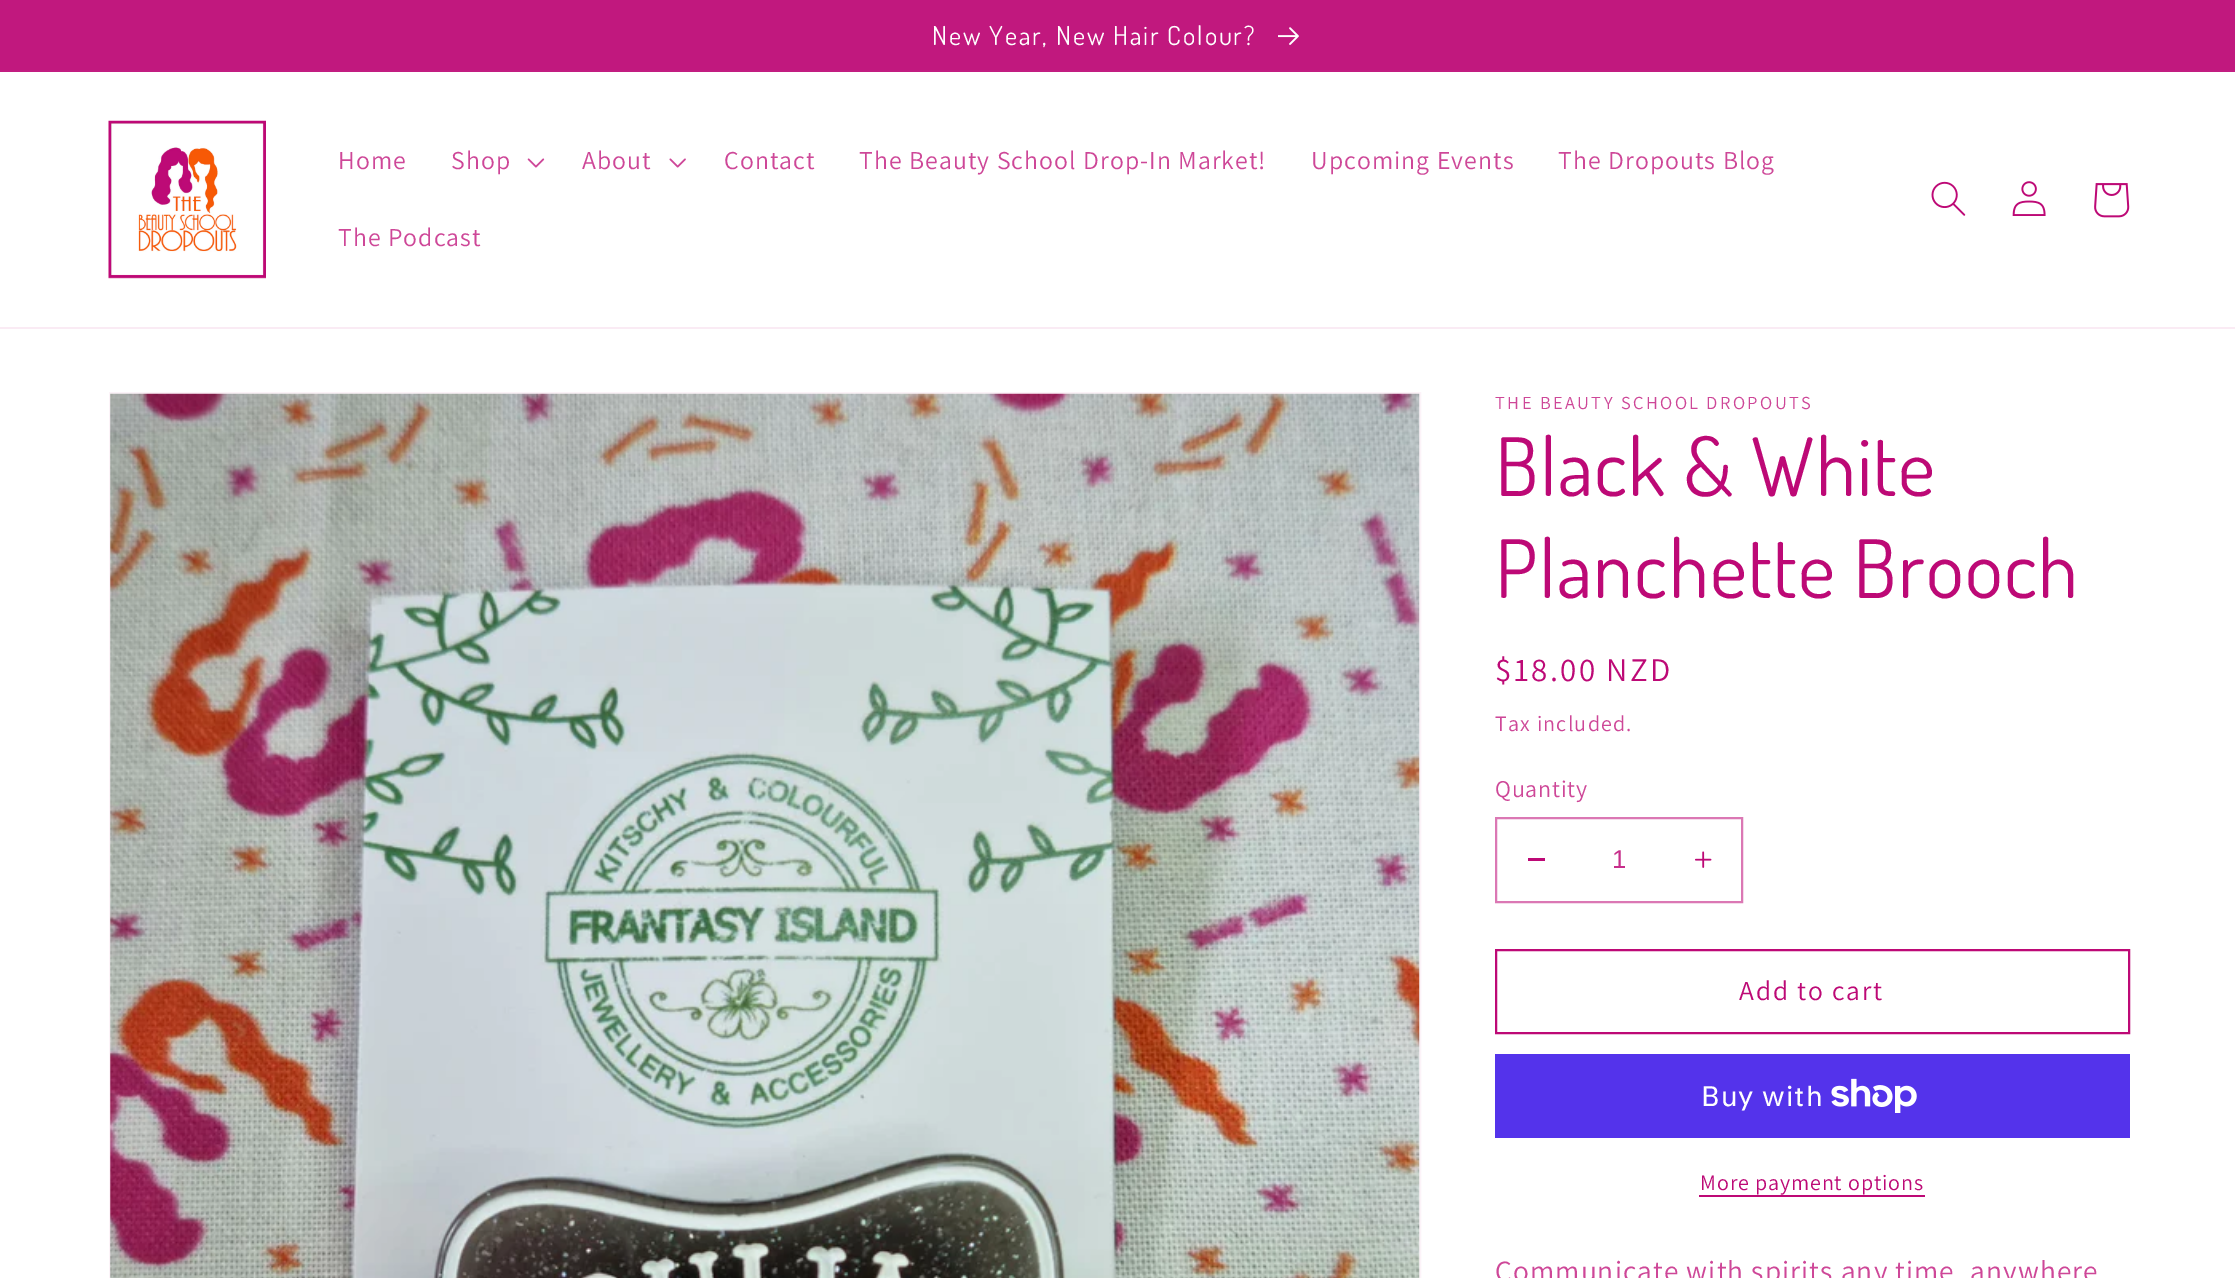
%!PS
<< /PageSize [2235 1278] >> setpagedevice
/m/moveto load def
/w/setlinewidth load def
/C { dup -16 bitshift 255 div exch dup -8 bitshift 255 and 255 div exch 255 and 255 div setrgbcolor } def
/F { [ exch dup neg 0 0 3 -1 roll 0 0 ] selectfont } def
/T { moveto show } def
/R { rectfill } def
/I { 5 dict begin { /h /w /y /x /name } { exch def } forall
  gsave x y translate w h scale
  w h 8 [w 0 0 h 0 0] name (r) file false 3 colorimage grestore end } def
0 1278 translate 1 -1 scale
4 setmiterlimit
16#FFFFFF C
0 0 2235 1278 R
16#C21D81 C
0 70 2235 2 R
16#C1187E C
0 0 2235 70 R
/Dosis-Regular 26.2 F
16#FFFFFF C
932 45 m 1.85 0 (New Year, New Hair Colour?) ashow
(1.rgb) 1278 27 21 18 I
16#FAEBF4 C
0 327 2235 2 R
(2.rgb) 108 120 158 159 I
/Assistant-Regular 25.75 F
16#CE4798 C
338 169 m 1.1 0 (Home) ashow
451 169 m 1.1 0 (Shop) ashow
(3.rgb) 527 158 18 10 I
582 169 m 1.1 0 (About) ashow
(4.rgb) 669 158 17 10 I
724 169 m 1.1 0 (Contact) ashow
859 169 m 1.1 0 (The Beauty School Drop-In Market!) ashow
1311 169 m 1.1 0 (Upcoming Events) ashow
1558 169 m 1.1 0 (The Dropouts Blog) ashow
338 246 m 1.1 0 (The Podcast) ashow
(5.rgb) 1931 181 35 35 I
(6.rgb) 2012 181 34 35 I
(7.rgb) 2094 183 36 35 I
16#FCF3F8 C
2 w
110 393 1310 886 rectstroke
(8.rgb) 110 393 1310 885 I
/Assistant-Regular 18.4 F
16#CE4798 C
1495 409 m 2.4 0 (THE BEAUTY SCHOOL DROPOUTS) ashow
/Dosis-Regular 80.5 F
16#BD0976 C
1495 496 m 1.25 0 (Black & White) ashow
1495 598 m 1.25 0 (Planchette Brooch) ashow
/Assistant-Regular 33 F
1495 681 m 2.4 0 ($18.00 NZD) ashow
/Assistant-Regular 22 F
16#CE4798 C
1495 731 m 1.25 0 (Tax included.) ashow
/Assistant-Regular 24 F
1495 797 m .75 0 (Quantity) ashow
16#BD0976 C
1528 858 17 3 R
(9.rgb) 1695 851 17 17 I
16#DB78B4 C
1496 818 246 84 rectstroke
/LiberationSans-Regular 25.75 F
16#C72E8B C
(1) 1612 868 T
16#BD0976 C
1496 950 633 83 rectstroke
/Assistant-Regular 27.5 F
1739 1000 m 1.85 0 (Add to cart) ashow
16#5433EB C
1495 1054 635 84 R
/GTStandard-Regular 28 F
16#FFFFFF C
1701 1106 m 1.1 0 (Buy with) ashow
(10.rgb) 1831 1078 86 35 I
/Assistant-Regular 22 F
16#BD0976 C
1700 1190 m .9 0 (More payment options) ashow
1699 1195 226 2 R
/Assistant-Regular 29.4 F
16#CE4798 C
1495 1281 m 1.1 0 (Communicate with spirits any time, anywhere) ashow
showpage
